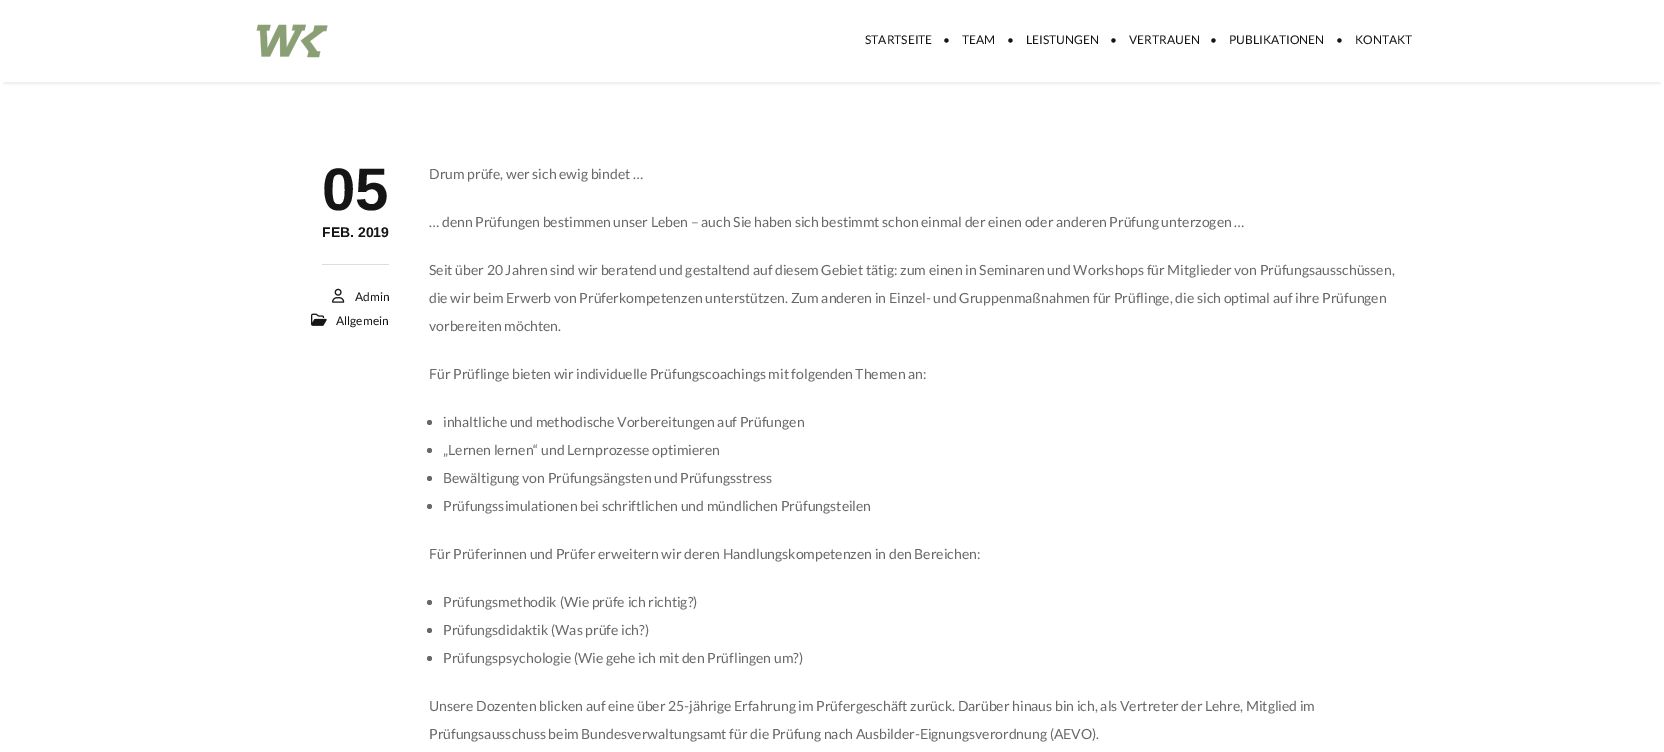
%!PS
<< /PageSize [1664 752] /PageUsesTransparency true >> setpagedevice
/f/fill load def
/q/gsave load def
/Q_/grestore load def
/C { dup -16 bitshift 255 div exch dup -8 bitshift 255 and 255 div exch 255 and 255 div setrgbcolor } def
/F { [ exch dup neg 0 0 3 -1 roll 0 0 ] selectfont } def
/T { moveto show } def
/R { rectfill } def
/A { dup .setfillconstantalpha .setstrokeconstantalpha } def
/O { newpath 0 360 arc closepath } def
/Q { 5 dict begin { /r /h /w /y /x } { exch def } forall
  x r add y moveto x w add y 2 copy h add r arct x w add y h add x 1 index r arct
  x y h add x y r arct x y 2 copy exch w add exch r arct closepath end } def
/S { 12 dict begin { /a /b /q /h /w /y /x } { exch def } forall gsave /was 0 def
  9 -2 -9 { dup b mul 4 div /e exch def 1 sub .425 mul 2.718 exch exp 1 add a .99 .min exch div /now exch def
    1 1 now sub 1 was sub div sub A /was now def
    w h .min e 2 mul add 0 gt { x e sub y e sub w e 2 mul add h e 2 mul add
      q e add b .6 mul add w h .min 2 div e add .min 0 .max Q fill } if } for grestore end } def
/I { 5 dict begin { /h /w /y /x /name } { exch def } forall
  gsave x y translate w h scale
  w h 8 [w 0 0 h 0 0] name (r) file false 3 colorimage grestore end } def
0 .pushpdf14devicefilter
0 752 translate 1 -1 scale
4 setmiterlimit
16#FFFFFF C
0 0 1664 752 R
q
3 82 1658 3 rectclip
16#000000 C
4 9 1656 74 0 2.5 .1 S
Q_
(1.rgb) 256 24 72 34 I
/Lato-Regular 12 F
16#151515 C
(STARTSEITE) 865 44 T
(•) 943 44 T
(TEAM) 962 44 T
(•) 1007 44 T
(LEISTUNGEN) 1026 44 T
(•) 1110 44 T
(VERTRAUEN) 1129 44 T
(•) 1210 44 T
(PUBLIKATIONEN) 1229 44 T
(•) 1336 44 T
(KONTAKT) 1355 44 T
16#DDDDDD C
322 264 67 1 R
/LiberationSans-Bold 60 F
16#151515 C
(05) 322 210 T
/LiberationSans-Bold 14 F
(FEB. 2019) 322 237 T
(2.rgb) 332 288 13 15 I
/Lato-Regular 12 F
(Admin) 355 301 T
(3.rgb) 311 313 16 13 I
(Allgemein) 336 325 T
/Lato-Regular 14 F
16#686868 C
(Drum prüfe, wer sich ewig bindet …) 429 179 T
(… denn Prüfungen bestimmen unser Leben – auch Sie haben sich bestimmt schon einmal der einen oder anderen Prüfung unterzogen …) 429 227 T
(Seit über 20 Jahren sind wir beratend und gestaltend auf diesem Gebiet tätig: zum einen in Seminaren und Workshops für Mitglieder von Prüfungsausschüssen,) 429 275 T
(die wir beim Erwerb von Prüferkompetenzen unterstützen. Zum anderen in Einzel- und Gruppenmaßnahmen für Prüflinge, die sich optimal auf ihre Prüfungen) 429 303 T
(vorbereiten möchten.) 429 331 T
(Für Prüflinge bieten wir individuelle Prüfungscoachings mit folgenden Themen an:) 429 379 T
429.5 422.5 2.5 O f
(inhaltliche und methodische Vorbereitungen auf Prüfungen) 443 427 T
429.5 450.5 2.5 O f
(„Lernen lernen“ und Lernprozesse optimieren) 443 455 T
429.5 478.5 2.5 O f
(Bewältigung von Prüfungsängsten und Prüfungsstress) 443 483 T
429.5 506.5 2.5 O f
(Prüfungssimulationen bei schriftlichen und mündlichen Prüfungsteilen) 443 511 T
(Für Prüferinnen und Prüfer erweitern wir deren Handlungskompetenzen in den Bereichen:) 429 559 T
429.5 602.5 2.5 O f
(Prüfungsmethodik \(Wie prüfe ich richtig?\)) 443 607 T
429.5 630.5 2.5 O f
(Prüfungsdidaktik \(Was prüfe ich?\)) 443 635 T
429.5 658.5 2.5 O f
(Prüfungspsychologie \(Wie gehe ich mit den Prüflingen um?\)) 443 663 T
(Unsere Dozenten blicken auf eine über 25-jährige Erfahrung im Prüfergeschäft zurück. Darüber hinaus bin ich, als Vertreter der Lehre, Mitglied im) 429 711 T
(Prüfungsausschuss beim Bundesverwaltungsamt für die Prüfung nach Ausbilder-Eignungsverordnung \(AEVO\).) 429 739 T
.poppdf14devicefilter showpage
